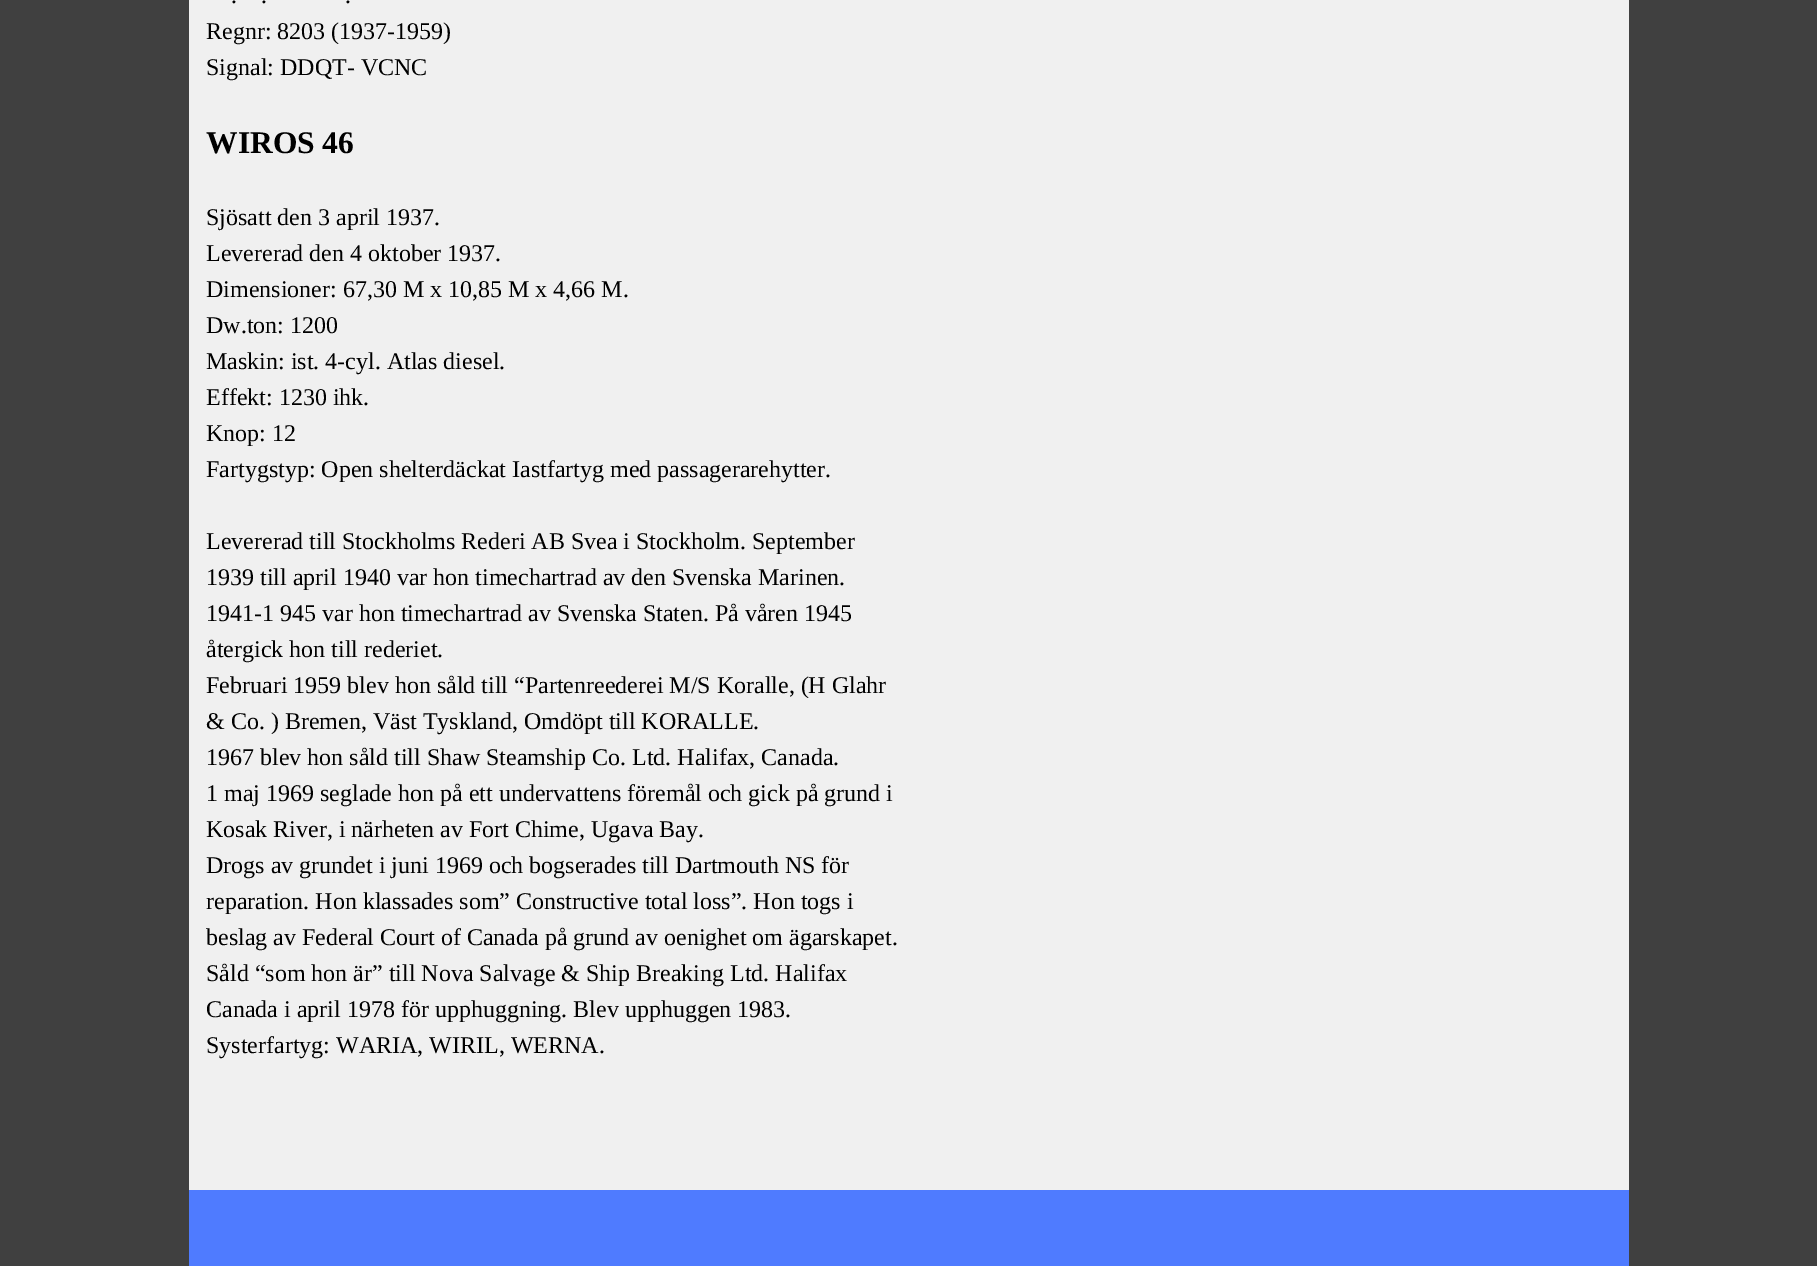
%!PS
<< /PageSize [1817 1266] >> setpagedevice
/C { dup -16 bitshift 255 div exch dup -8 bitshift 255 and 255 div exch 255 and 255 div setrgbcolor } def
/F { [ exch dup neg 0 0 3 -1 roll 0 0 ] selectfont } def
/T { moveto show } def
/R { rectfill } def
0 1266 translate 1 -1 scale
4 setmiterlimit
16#404040 C
0 0 1817 1266 R
16#F0F0F0 C
189 0 1440 1190 R
/LiberationSerif-Regular 24 F
16#000000 C
(.) 231 3 T
(.) 261 3 T
(.) 345 3 T
(Regnr: 8203 \(1937-1959\)) 206 39 T
(Signal: DDQT- VCNC) 206 75 T
/LiberationSerif-Bold 31.5 F
(WIROS 46) 206 153 T
/LiberationSerif-Regular 24 F
(Sjösatt den 3 april 1937.) 206 225 T
(Levererad den 4 oktober 1937.) 206 261 T
(Dimensioner: 67,30 M x 10,85 M x 4,66 M.) 206 297 T
(Dw.ton: 1200) 206 333 T
(Maskin: ist. 4-cyl. Atlas diesel.) 206 369 T
(Effekt: 1230 ihk.) 206 405 T
(Knop: 12) 206 441 T
(Fartygstyp: Open shelterdäckat Iastfartyg med passagerarehytter.) 206 477 T
(Levererad till Stockholms Rederi AB Svea i Stockholm. September) 206 549 T
(1939 till april 1940 var hon timechartrad av den Svenska Marinen.) 206 585 T
(1941-1 945 var hon timechartrad av Svenska Staten. På våren 1945) 206 621 T
(återgick hon till rederiet.) 206 657 T
(Februari 1959 blev hon såld till “Partenreederei M/S Koralle, \(H Glahr) 206 693 T
(& Co. \) Bremen, Väst Tyskland, Omdöpt till KORALLE.) 206 729 T
(1967 blev hon såld till Shaw Steamship Co. Ltd. Halifax, Canada.) 206 765 T
(1 maj 1969 seglade hon på ett undervattens föremål och gick på grund i) 206 801 T
(Kosak River, i närheten av Fort Chime, Ugava Bay.) 206 837 T
(Drogs av grundet i juni 1969 och bogserades till Dartmouth NS för) 206 873 T
(reparation. Hon klassades som” Constructive total loss”. Hon togs i) 206 909 T
(beslag av Federal Court of Canada på grund av oenighet om ägarskapet.) 206 945 T
(Såld “som hon är” till Nova Salvage & Ship Breaking Ltd. Halifax) 206 981 T
(Canada i april 1978 för upphuggning. Blev upphuggen 1983.) 206 1017 T
(Systerfartyg: WARIA, WIRIL, WERNA.) 206 1053 T
16#4F7BFF C
189 1190 1440 76 R
showpage
